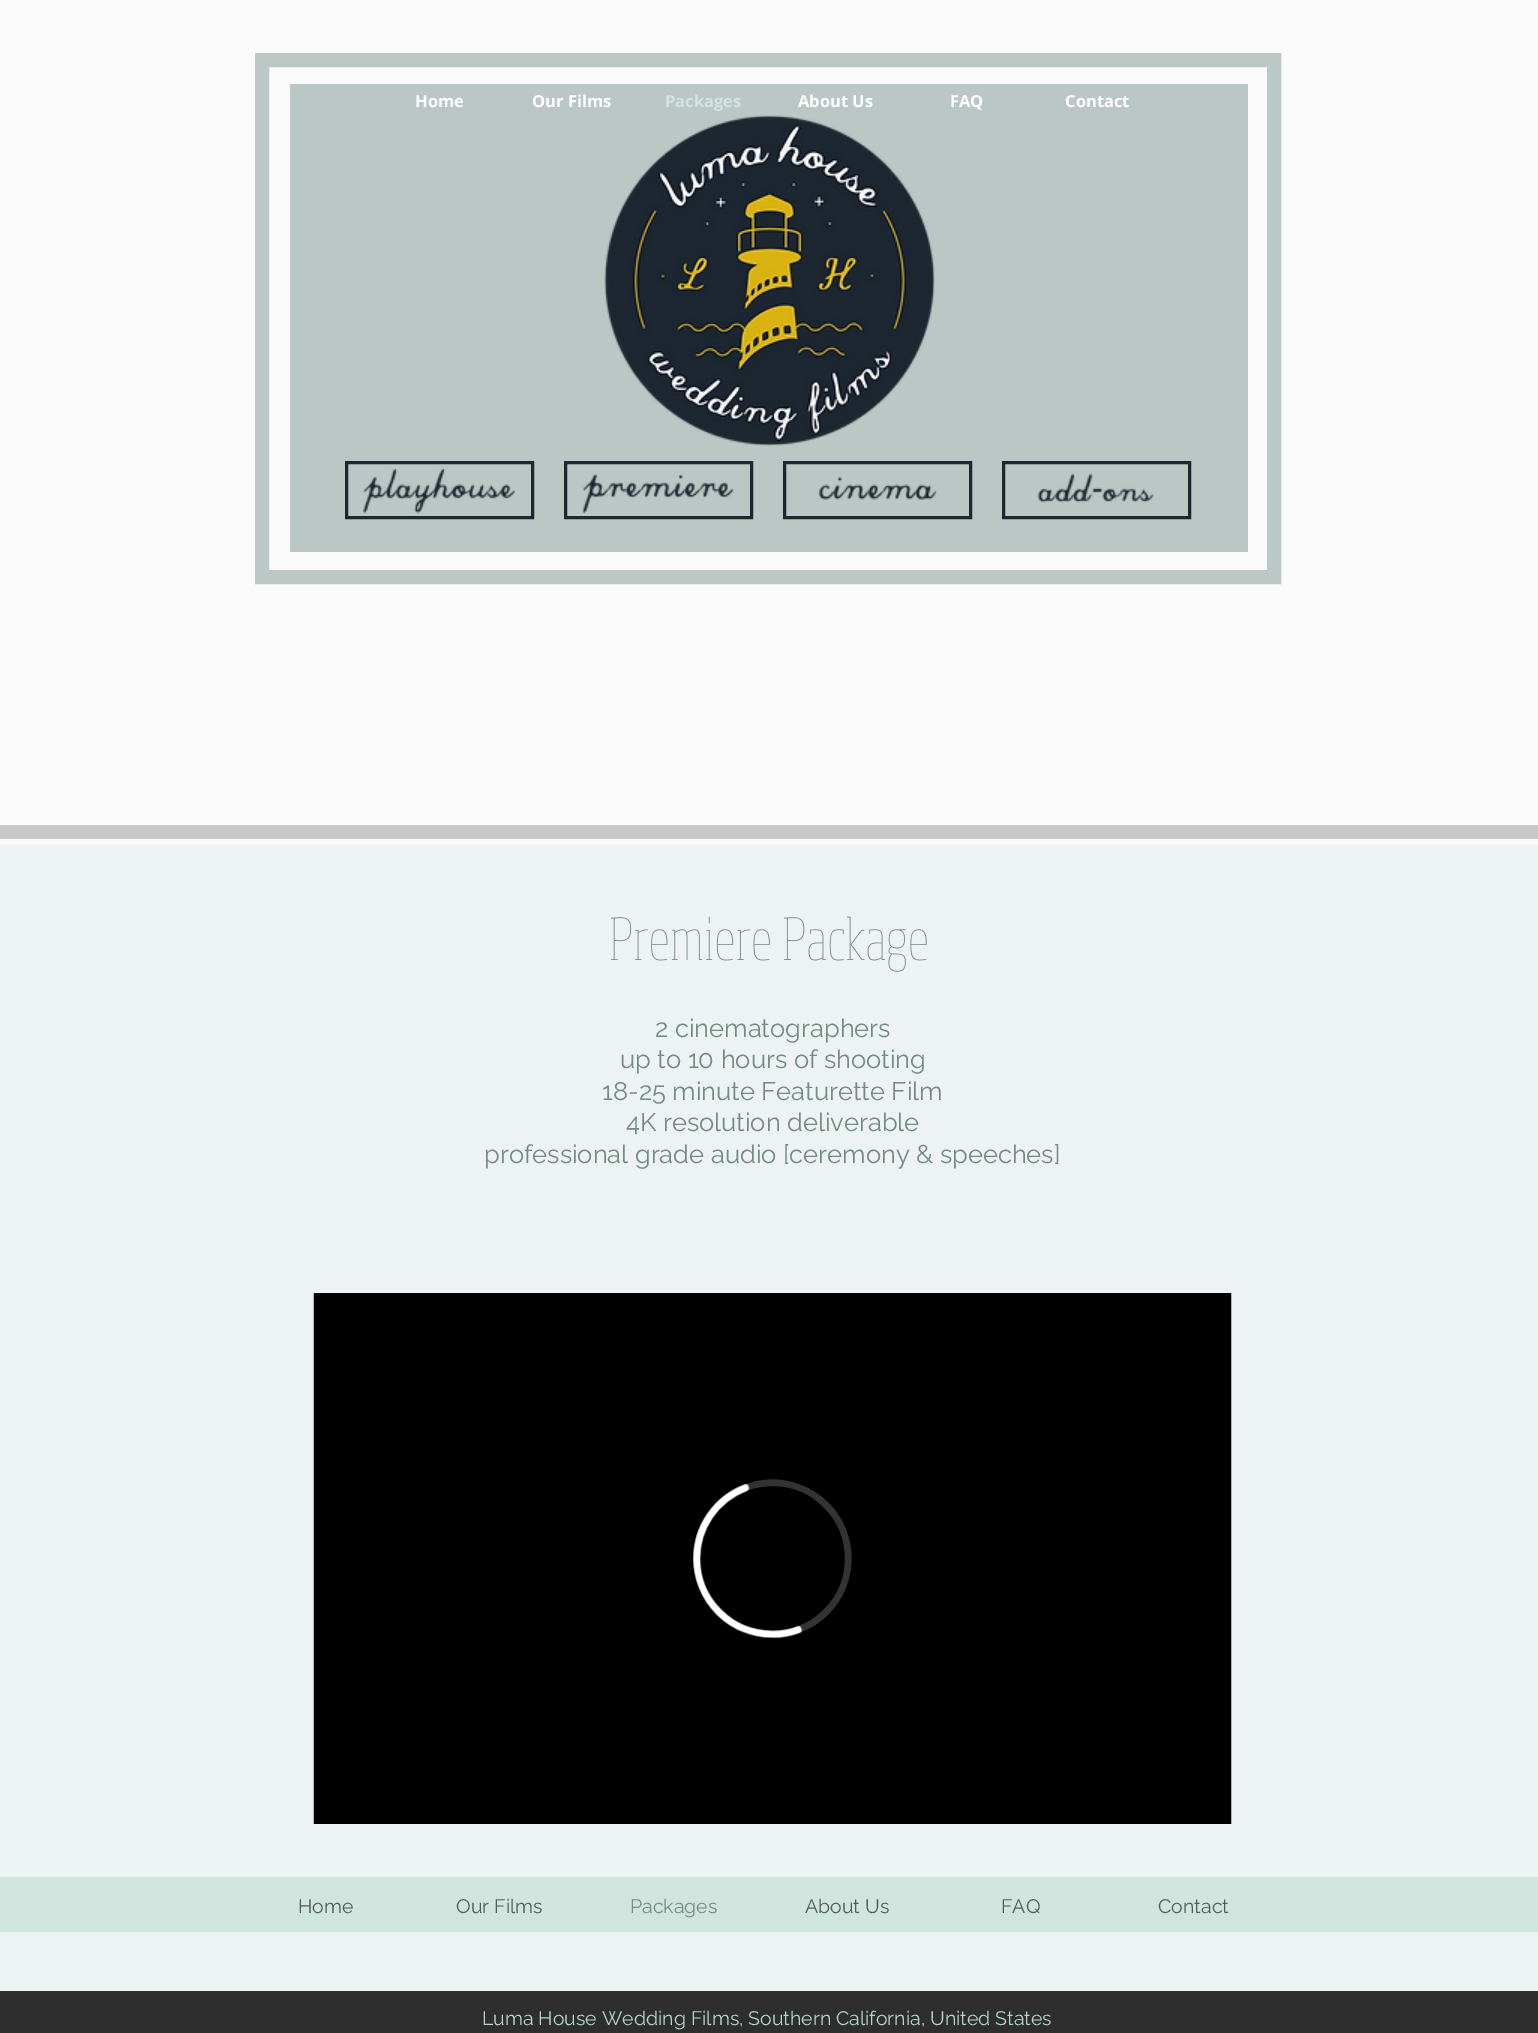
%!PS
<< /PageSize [1538 2033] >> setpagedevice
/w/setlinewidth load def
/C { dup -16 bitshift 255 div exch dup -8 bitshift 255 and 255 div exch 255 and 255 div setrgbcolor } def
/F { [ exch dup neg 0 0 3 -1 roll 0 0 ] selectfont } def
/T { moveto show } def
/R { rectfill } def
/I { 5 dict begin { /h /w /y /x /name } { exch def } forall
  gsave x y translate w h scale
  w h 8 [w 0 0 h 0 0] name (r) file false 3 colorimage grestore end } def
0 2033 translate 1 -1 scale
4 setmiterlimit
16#EDF2F2 C
0 0 1538 2033 R
16#FAFAFA C
0 0 1538 845 R
16#BBC7C5 C
290 84 958 468 R
16#BCC8C5 C
14 w
262 60 1012 517 rectstroke
/OpenSans-Bold 16.5 F
16#FFFFFF C
(Home) 415 107 T
(Our Films) 532 107 T
16#D0E5DE C
(Packages) 665 107 T
16#FFFFFF C
(About Us) 798 107 T
(FAQ) 950 107 T
(Contact) 1065 107 T
(1.rgb) 604 115 331 331 I
(2.rgb) 363 468 153 46 I
16#1D2731 C
3 w
346.5 462.5 186 55 rectstroke
(3.rgb) 582 473 152 41 I
565.5 462.5 186 55 rectstroke
(4.rgb) 818 476 119 24 I
784.5 462.5 186 55 rectstroke
(5.rgb) 1037 473 117 30 I
1003.5 462.5 186 55 rectstroke
16#C8CAC9 C
0 825 1538 14 R
(6.rgb) 610 916 317 56 I
/Raleway-Regular 25.5 F
16#728C82 C
(2 cinematographers) 655 1037 T
(up to 10 hours of shooting) 620 1068 T
(18-25 minute Featurette Film) 602 1100 T
(4K resolution deliverable) 626 1131 T
(professional grade audio [ceremony & speeches]) 484 1163 T
(7.rgb) 313 1293 919 531 I
16#D0E5DE C
0 1877 1538 55 R
/Raleway-Regular 19.5 F
16#535B58 C
(Home) 298 1913 T
(Our Films) 456 1913 T
16#728C82 C
(Packages) 630 1913 T
16#535B58 C
(About Us) 805 1913 T
(FAQ) 1001 1913 T
(Contact) 1158 1913 T
16#2F2E2E C
0 1991 1538 42 R
16#B3D9CC C
(Luma House Wedding Films, Southern California, United States) 482 2025 T
showpage
